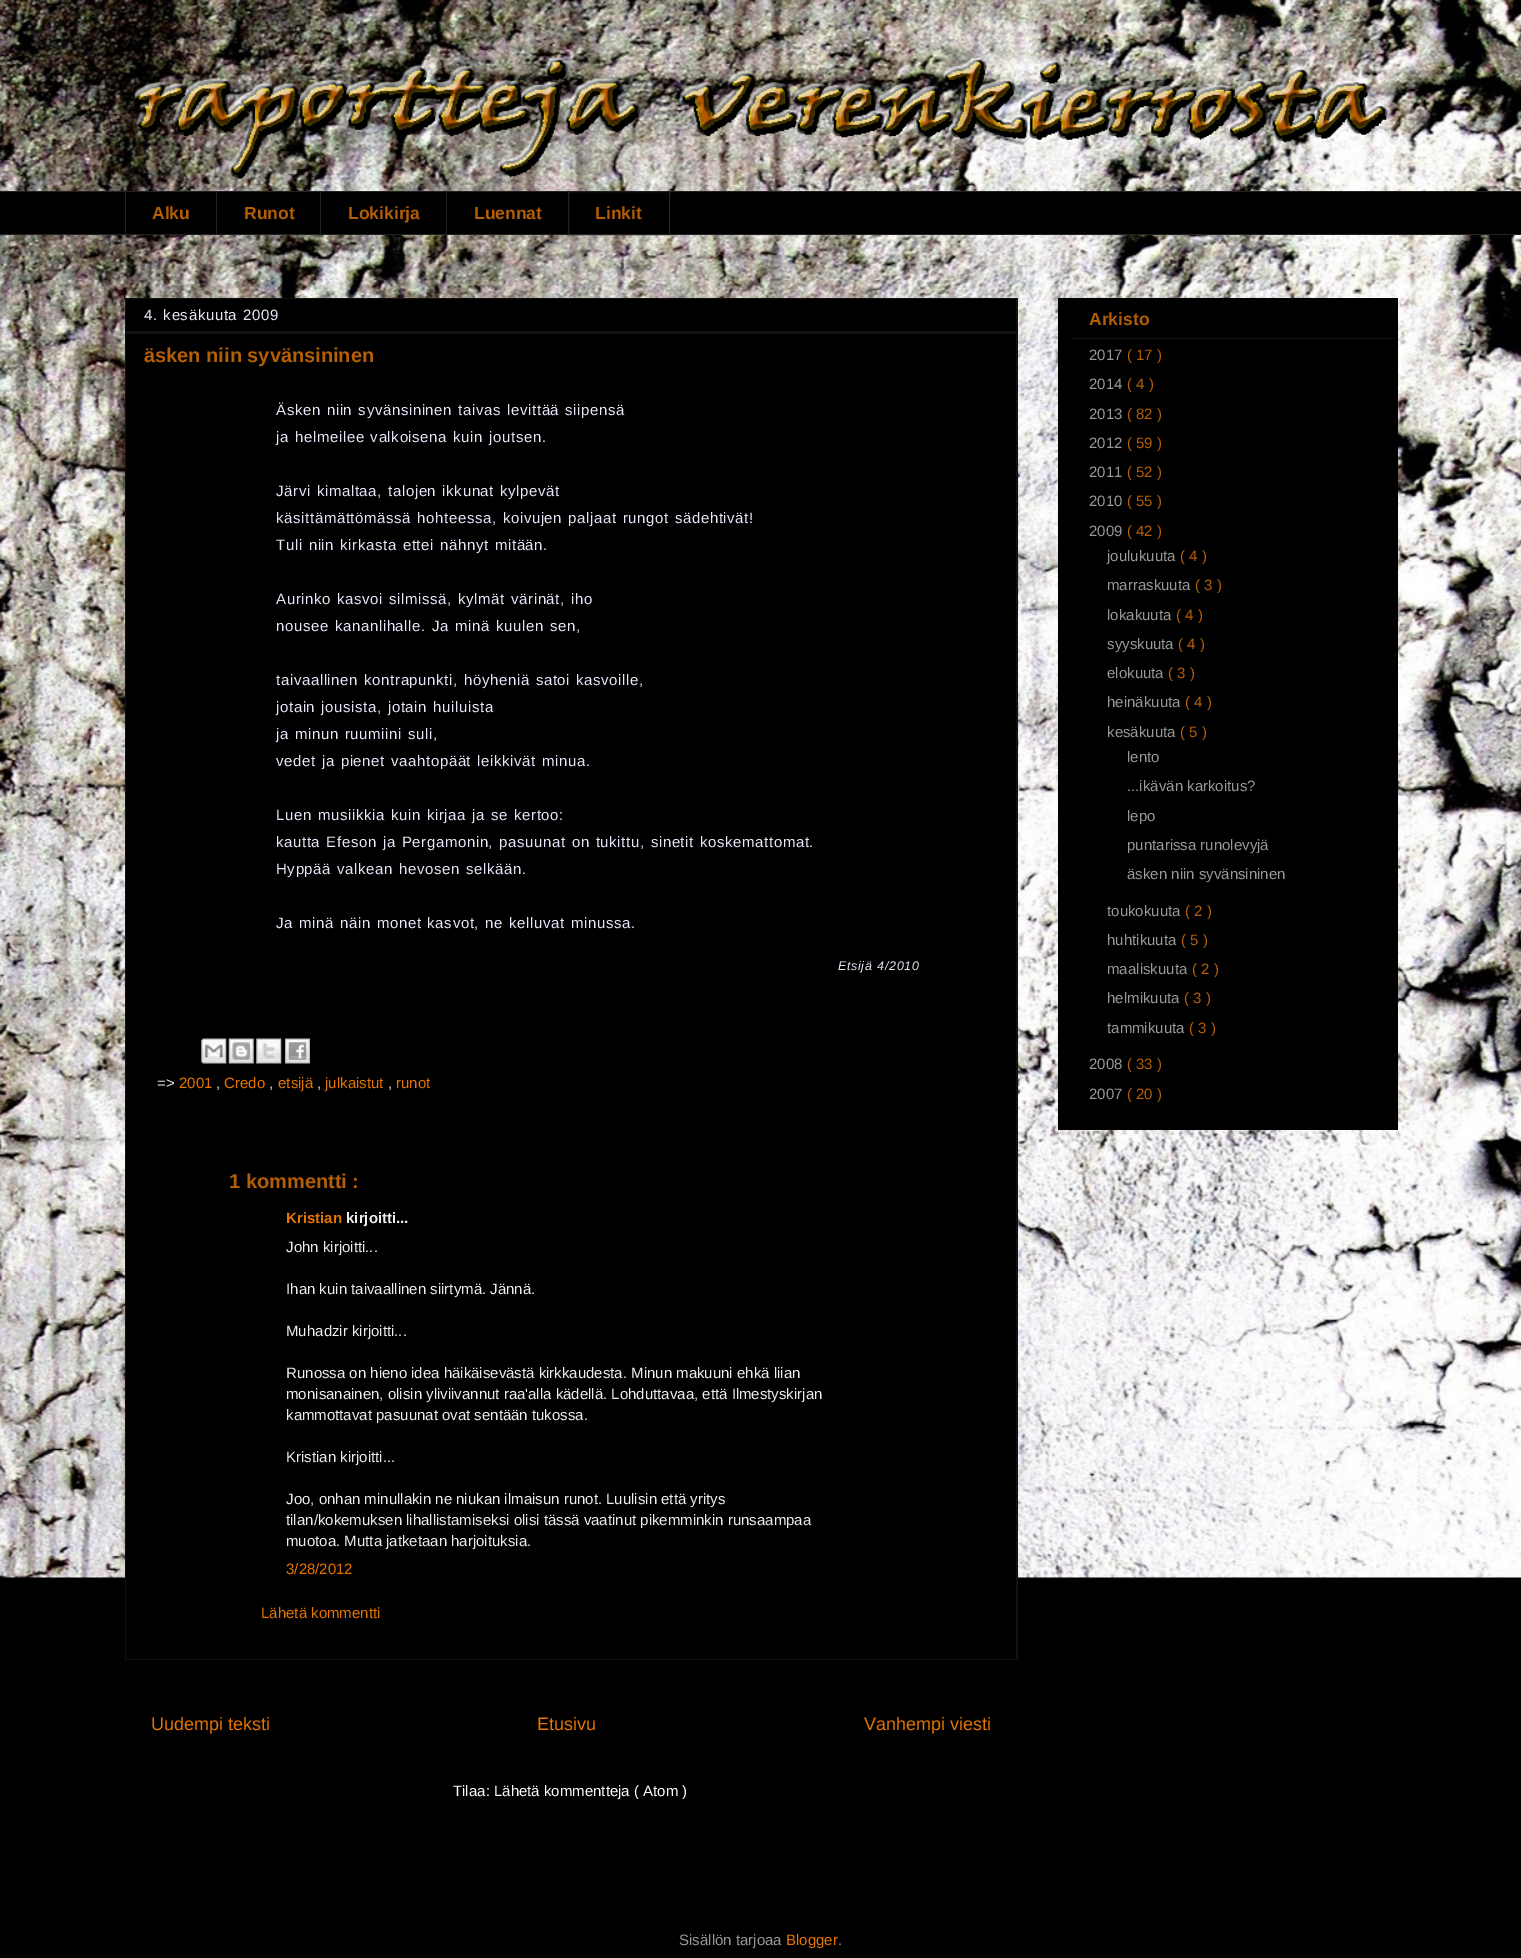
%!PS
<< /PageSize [1521 1958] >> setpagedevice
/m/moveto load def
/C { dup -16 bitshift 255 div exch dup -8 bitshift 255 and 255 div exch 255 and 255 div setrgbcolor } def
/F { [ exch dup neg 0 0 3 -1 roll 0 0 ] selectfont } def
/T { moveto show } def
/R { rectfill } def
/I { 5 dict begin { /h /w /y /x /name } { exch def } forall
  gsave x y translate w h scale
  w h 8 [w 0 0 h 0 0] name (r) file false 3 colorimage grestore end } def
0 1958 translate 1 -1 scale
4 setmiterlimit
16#000000 C
0 0 1521 1958 R
(1.rgb) 0 0 1521 1578 I
(2.rgb) 134 58 1254 121 I
0 192 1521 42 R
16#222222 C
0 191 1521 1 R
125 191 1 44 R
/LiberationSans-Bold 17.5 F
16#B45F06 C
(Alku) 152 219 T
16#222222 C
216 191 1 44 R
16#B45F06 C
(Runot) 244 219 T
16#222222 C
320 191 1 44 R
16#B45F06 C
(Lokikirja) 348 219 T
16#222222 C
446 191 1 44 R
16#B45F06 C
(Luennat) 474 219 T
16#222222 C
568.5 191.5 101 43 rectstroke
16#B45F06 C
(Linkit) 595 219 T
16#222222 C
0 234 1521 1 R
16#111111 C
125 298 893 1362 R
16#000000 C
126 299 890 32 R
/LiberationSans-Regular 15 F
16#E6E8FA C
144 320 m 1 0 32 .6 0 (4. kesäkuuta 2009) awidthshow
16#000000 C
126 334 890 1325 R
/LiberationSans-Bold 20 F
16#B45F06 C
(äsken niin syvänsininen) 144 362 T
/LiberationSans-Regular 15 F
16#E6E8FA C
276 415 m 1.25 0 32 .6 0 (Äsken niin syvänsininen taivas levittää siipensä) awidthshow
276 442 m 1.25 0 32 .6 0 (ja helmeilee valkoisena kuin joutsen.) awidthshow
276 496 m 1.25 0 32 .6 0 (Järvi kimaltaa, talojen ikkunat kylpevät) awidthshow
276 523 m 1.25 0 32 .6 0 (käsittämättömässä hohteessa, koivujen paljaat rungot sädehtivät!) awidthshow
276 550 m 1.25 0 32 .6 0 (Tuli niin kirkasta ettei nähnyt mitään.) awidthshow
276 604 m 1.25 0 32 .6 0 (Aurinko kasvoi silmissä, kylmät värinät, iho) awidthshow
276 631 m 1.25 0 32 .6 0 (nousee kananlihalle. Ja minä kuulen sen,) awidthshow
276 685 m 1.25 0 32 .6 0 (taivaallinen kontrapunkti, höyheniä satoi kasvoille,) awidthshow
276 712 m 1.25 0 32 .6 0 (jotain jousista, jotain huiluista) awidthshow
276 739 m 1.25 0 32 .6 0 (ja minun ruumiini suli,) awidthshow
276 766 m 1.25 0 32 .6 0 (vedet ja pienet vaahtopäät leikkivät minua.) awidthshow
276 820 m 1.25 0 32 .6 0 (Luen musiikkia kuin kirjaa ja se kertoo:) awidthshow
276 847 m 1.25 0 32 .6 0 (kautta Efeson ja Pergamonin, pasuunat on tukittu, sinetit koskemattomat.) awidthshow
276 874 m 1.25 0 32 .6 0 (Hyppää valkean hevosen selkään.) awidthshow
276 928 m 1.25 0 32 .6 0 (Ja minä näin monet kasvot, ne kelluvat minussa.) awidthshow
/LiberationSans-Italic 12.5 F
838 970 m 1.25 0 32 .6 0 (Etsijä 4/2010) awidthshow
(3.rgb) 201 1038 26 26 I
(4.rgb) 228 1038 26 26 I
(5.rgb) 256 1038 26 26 I
(6.rgb) 285 1038 25 26 I
/LiberationSans-Regular 15 F
16#EEEEEE C
(=>) 157 1088 T
16#E67400 C
(2001) 179 1088 T
(Credo) 224 1088 T
(etsijä) 278 1088 T
(julkaistut) 325 1088 T
(runot) 396 1088 T
16#EEEEEE C
(,) 216 1088 T
(,) 269 1088 T
(,) 317 1088 T
(,) 388 1088 T
/LiberationSans-Bold 20 F
16#B45F06 C
(1 kommentti :) 229 1188 T
/LiberationSans-Bold 15 F
16#E67400 C
(Kristian) 286 1223 T
16#EEEEEE C
(kirjoitti...) 346 1223 T
/LiberationSans-Regular 15 F
(John kirjoitti...) 286 1252 T
(Ihan kuin taivaallinen siirtymä. Jännä.) 286 1294 T
(Muhadzir kirjoitti...) 286 1336 T
(Runossa on hieno idea häikäisevästä kirkkaudesta. Minun makuuni ehkä liian) 286 1378 T
(monisanainen, olisin yliviivannut raa'alla kädellä. Lohduttavaa, että Ilmestyskirjan) 286 1399 T
(kammottavat pasuunat ovat sentään tukossa.) 286 1420 T
(Kristian kirjoitti...) 286 1462 T
(Joo, onhan minullakin ne niukan ilmaisun runot. Luulisin että yritys) 286 1504 T
(tilan/kokemuksen lihallistamiseksi olisi tässä vaatinut pikemminkin runsaampaa) 286 1525 T
(muotoa. Mutta jatketaan harjoituksia.) 286 1546 T
16#E67400 C
(3/28/2012) 286 1574 T
(Lähetä kommentti) 261 1618 T
/LiberationSans-Regular 18 F
(Uudempi teksti) 151 1730 T
(Etusivu) 537 1730 T
(Vanhempi viesti) 864 1730 T
/LiberationSans-Regular 15 F
16#FFFFFF C
(Tilaa: Lähetä kommentteja \( Atom \)) 453 1796 T
16#000000 C
1058 298 340 832 R
16#111111 C
1071 338 325 1 R
/LiberationSans-Bold 17.5 F
16#B45F06 C
(Arkisto) 1089 325 T
/LiberationSans-Regular 15 F
16#999999 C
(2017) 1089 360 T
16#B45F06 C
(\( 17 \)) 1127 360 T
16#999999 C
(2014) 1089 389 T
16#B45F06 C
(\( 4 \)) 1127 389 T
16#999999 C
(2013) 1089 419 T
16#B45F06 C
(\( 82 \)) 1127 419 T
16#999999 C
(2012) 1089 448 T
16#B45F06 C
(\( 59 \)) 1127 448 T
16#999999 C
(2011) 1089 477 T
16#B45F06 C
(\( 52 \)) 1127 477 T
16#999999 C
(2010) 1089 506 T
16#B45F06 C
(\( 55 \)) 1127 506 T
16#999999 C
(2009) 1089 536 T
16#B45F06 C
(\( 42 \)) 1127 536 T
16#999999 C
(joulukuuta) 1107 561 T
16#B45F06 C
(\( 4 \)) 1180 561 T
16#999999 C
(marraskuuta) 1107 590 T
16#B45F06 C
(\( 3 \)) 1195 590 T
16#999999 C
(lokakuuta) 1107 620 T
16#B45F06 C
(\( 4 \)) 1176 620 T
16#999999 C
(syyskuuta) 1107 649 T
16#B45F06 C
(\( 4 \)) 1178 649 T
16#999999 C
(elokuuta) 1107 678 T
16#B45F06 C
(\( 3 \)) 1168 678 T
16#999999 C
(heinäkuuta) 1107 707 T
16#B45F06 C
(\( 4 \)) 1185 707 T
16#999999 C
(kesäkuuta) 1107 737 T
16#B45F06 C
(\( 5 \)) 1180 737 T
16#999999 C
(lento) 1127 762 T
(...ikävän karkoitus?) 1127 791 T
(lepo) 1127 821 T
(puntarissa runolevyjä) 1127 850 T
(äsken niin syvänsininen) 1127 879 T
(toukokuuta) 1107 916 T
16#B45F06 C
(\( 2 \)) 1185 916 T
16#999999 C
(huhtikuuta) 1107 945 T
16#B45F06 C
(\( 5 \)) 1181 945 T
16#999999 C
(maaliskuuta) 1107 974 T
16#B45F06 C
(\( 2 \)) 1192 974 T
16#999999 C
(helmikuuta) 1107 1003 T
16#B45F06 C
(\( 3 \)) 1184 1003 T
16#999999 C
(tammikuuta) 1107 1033 T
16#B45F06 C
(\( 3 \)) 1189 1033 T
16#999999 C
(2008) 1089 1069 T
16#B45F06 C
(\( 33 \)) 1127 1069 T
16#999999 C
(2007) 1089 1099 T
16#B45F06 C
(\( 20 \)) 1127 1099 T
16#999999 C
(Sisällön tarjoaa) 679 1945 T
16#E67400 C
(Blogger) 786 1945 T
16#999999 C
(.) 838 1945 T
showpage
